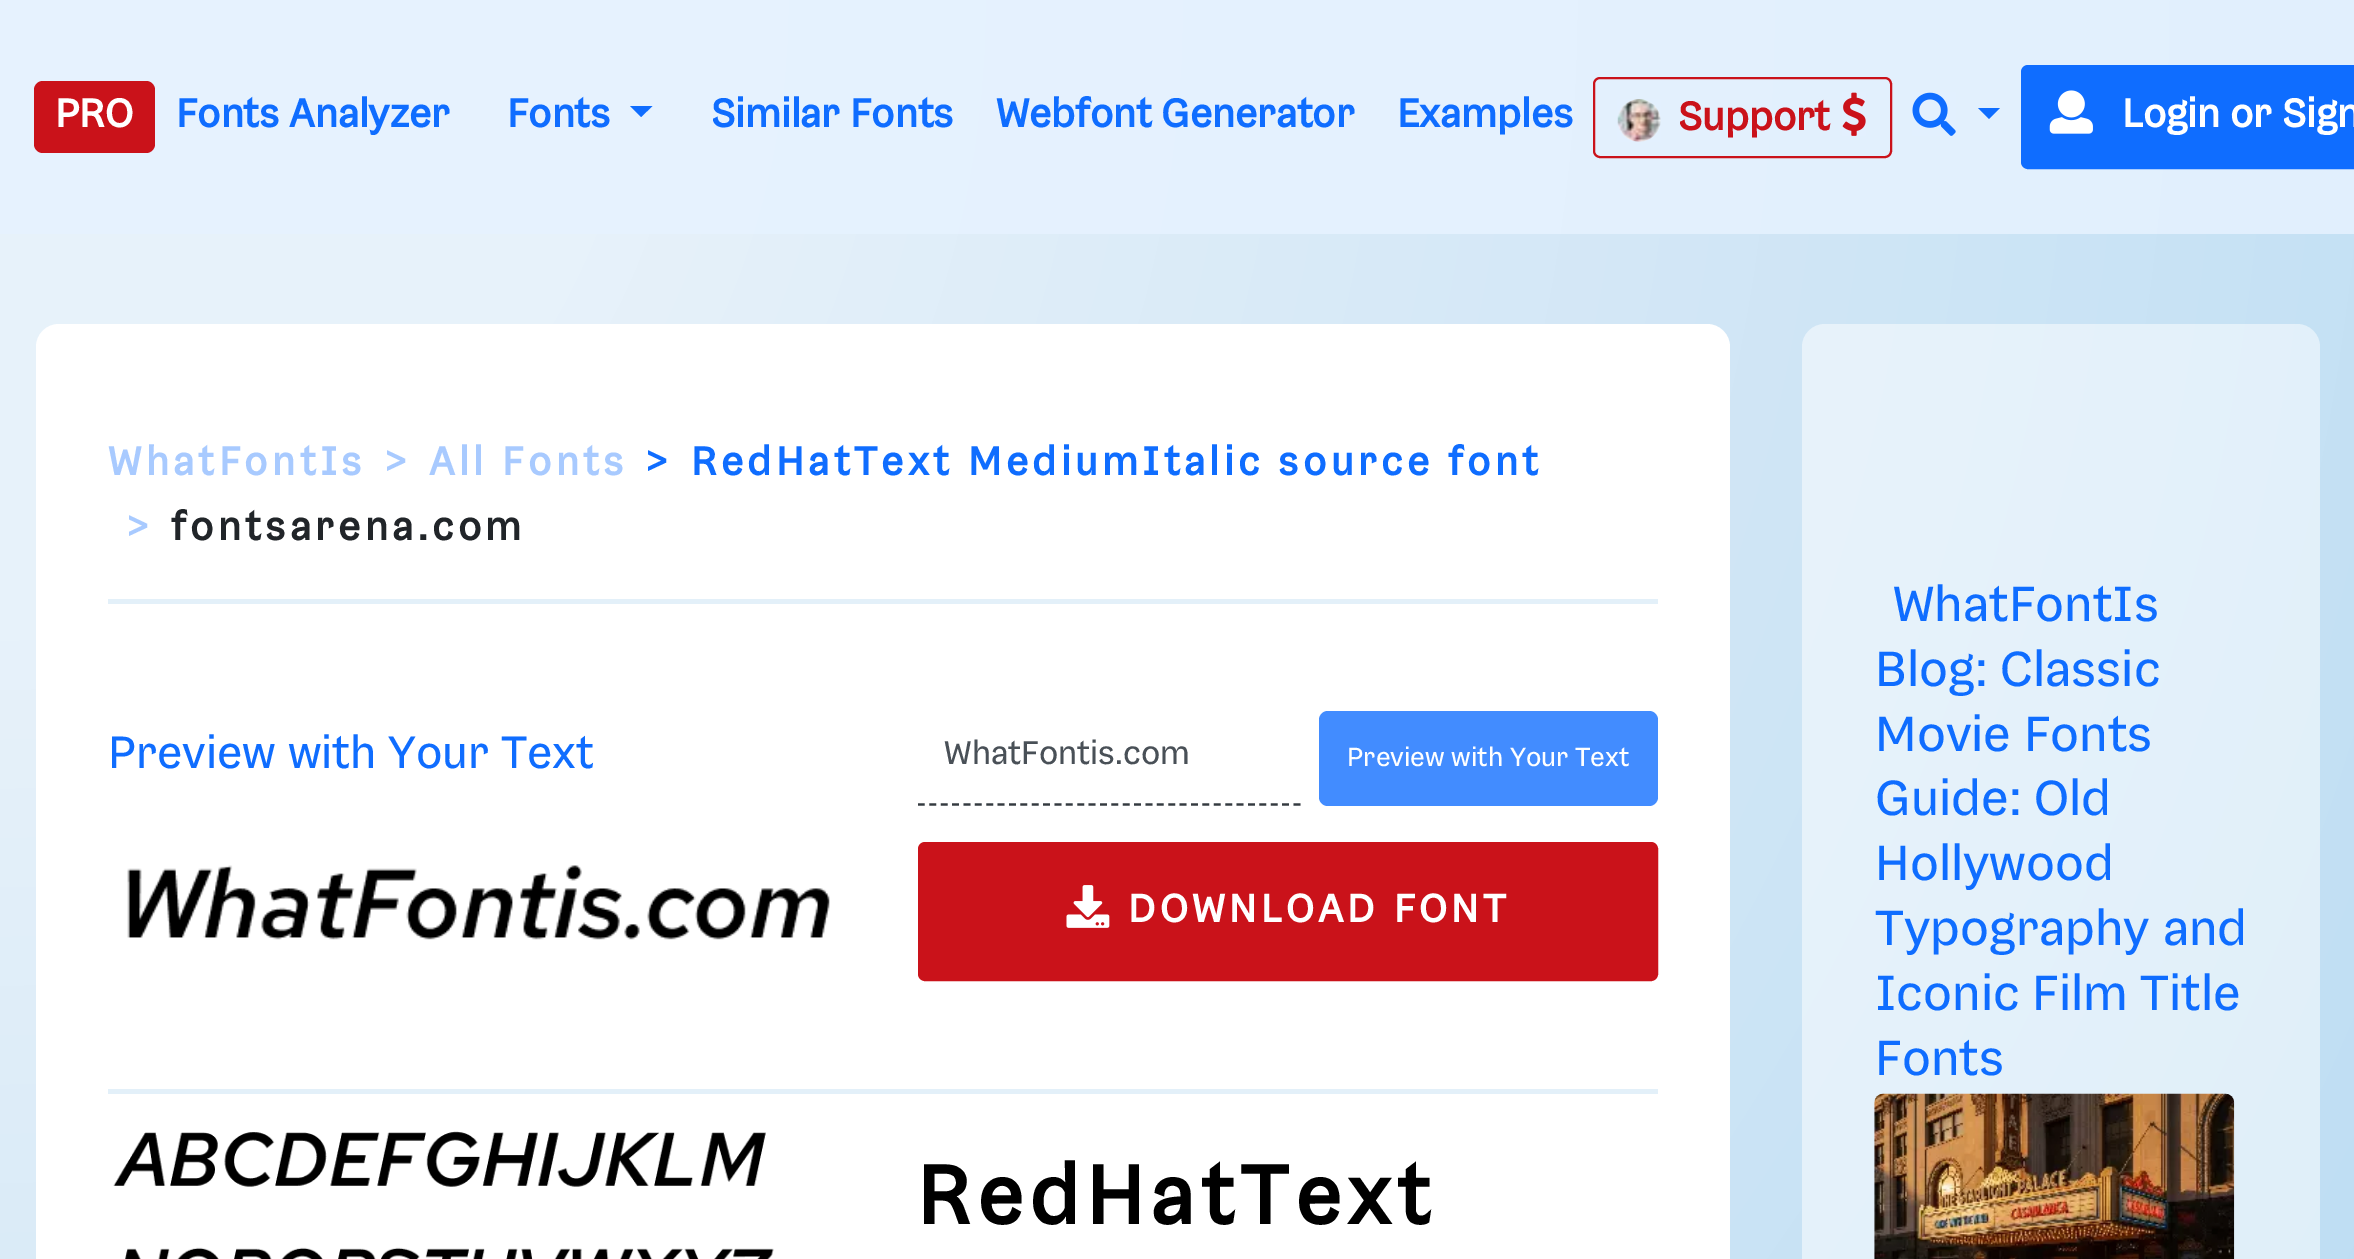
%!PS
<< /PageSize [2354 1259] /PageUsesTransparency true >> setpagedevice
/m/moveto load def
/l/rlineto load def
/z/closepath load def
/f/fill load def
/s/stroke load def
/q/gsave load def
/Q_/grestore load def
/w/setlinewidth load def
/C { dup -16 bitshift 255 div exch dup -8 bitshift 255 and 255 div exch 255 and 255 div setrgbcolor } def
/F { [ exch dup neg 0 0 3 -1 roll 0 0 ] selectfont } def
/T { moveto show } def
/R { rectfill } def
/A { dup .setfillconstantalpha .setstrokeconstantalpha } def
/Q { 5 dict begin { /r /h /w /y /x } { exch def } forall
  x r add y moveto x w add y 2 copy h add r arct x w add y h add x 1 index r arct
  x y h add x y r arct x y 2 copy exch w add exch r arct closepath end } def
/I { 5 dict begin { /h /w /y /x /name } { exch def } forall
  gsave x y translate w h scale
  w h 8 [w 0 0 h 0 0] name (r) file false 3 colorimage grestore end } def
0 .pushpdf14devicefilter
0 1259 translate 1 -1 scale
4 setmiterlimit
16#FFFFFF C
0 0 2354 1259 R
q 0 234 m 2354 0 l 0 1025 l -2354 0 l z clip newpath 0 0 translate 6311 6311 scale
<< /ShadingType 3 /ColorSpace /DeviceRGB /Coords [0 0 0 0 0 1] /Extend [true true] /Function << /FunctionType 3 /Domain [0 1] /Functions [<< /FunctionType 2 /Domain [0 1] /C0 [.906 .949 .98] /C1 [.906 .949 .98] /N 1 >> << /FunctionType 2 /Domain [0 1] /C0 [.906 .949 .98] /C1 [.471 .725 .906] /N 1 >>] /Bounds [.1] /Encode [0 1 0 1] >> >> shfill Q_
q 0 0 m 2354 0 l 0 234 l -2354 0 l z clip newpath 0 0 translate 6311 6311 scale
<< /ShadingType 3 /ColorSpace /DeviceRGB /Coords [0 0 0 0 0 1] /Extend [true true] /Function << /FunctionType 3 /Domain [0 1] /Functions [<< /FunctionType 2 /Domain [0 1] /C0 [.902 .949 .996] /C1 [.902 .949 .996] /N 1 >> << /FunctionType 2 /Domain [0 1] /C0 [.902 .949 .996] /C1 [.839 .914 .984] /N 1 >>] /Bounds [.1] /Encode [0 1 0 1] >> >> shfill Q_
16#CA121A C
34 81 121 72 9 Q f
/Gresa-Bold 43.25 F
16#FFFFFF C
(PRO) 55 127 T
16#0F6DFF C
(Fonts Analyzer) 176 127 T
(Fonts) 507 127 T
630 106 m 22.5 0 l -11.5 11 l z f
(Similar Fonts) 711 127 T
(Webfont Generator) 996 127 T
(Examples) 1397 127 T
16#CA121A C
2 w
1594 78 297 79 6 Q s
(1.rgb) 1617 99 44 43 I
(Support) 1678 130 T
(2.rgb) 1842 92 24 44 I
(3.rgb) 1912 92 44 44 I
16#0F6DFF C
1978 108 m 22 0 l -11 11 l z f
2022 66 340 102 6 Q q f Q_
s
(4.rgb) 2049 90 44 44 I
16#FFFFFF C
(Login or Sign) 2122 127 T
36 324 1694 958 23 Q f
16#A8CAFF C
108 475 m 4.5 0 (WhatFontIs) ashow
384 475 m 4.5 0 (>) ashow
429 475 m 4.5 0 (All Fonts) ashow
16#0F6DFF C
645 475 m 4.5 0 (>) ashow
691 475 m 4.5 0 (RedHatText MediumItalic source font) ashow
16#A8CAFF C
126 540 m 4.5 0 (>) ashow
16#212529 C
171 540 m 4.5 0 (fontsarena.com) ashow
16#E3F0F9 C
108 599 1550 5 R
108 1089 1550 5 R
/Gresa-Regular 49.5 F
16#0F6DFF C
(Preview with Your Text) 108 768 T
16#343A40 C
2.2 w
[6.75 4.63] 0 setdash
918 804.5 m 382.5 0 l s
/Gresa-Regular 36 F
16#495057 C
(WhatFontis.com) 944 764 T
16#428CFF C
1319 711 339 95 9 Q f
/Gresa-Regular 28.75 F
16#FFFFFF C
(Preview with Your Text) 1347 766 T
(5.rgb) 127 865 703 75 I
16#CA121A C
919 843 738 137 6 Q q f Q_
2 w
[] 0 setdash
s
(6.rgb) 1066 885 44 43 I
/Gresa-Bold 42.75 F
16#FFFFFF C
1128 922 m 4.5 0 (DOWNLOAD FONT) ashow
(7.rgb) 113 1131 653 56 I
(8.rgb) 125 1247 649 12 I
/Gresa-Bold 90 F
16#000000 C
917 1224 m 6.75 0 (RedHatText) ashow
0.5 A
16#FFFFFF C
1802 324 518 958 23 Q f
/Gresa-Regular 54 F
1 A
16#0F6DFF C
(WhatFontIs) 1893 621 T
(Blog: Classic) 1875 686 T
(Movie Fonts) 1875 751 T
(Guide: Old) 1875 815 T
(Hollywood) 1875 880 T
(Typography and) 1875 945 T
(Iconic Film Title) 1875 1010 T
(Fonts) 1875 1075 T
(9.rgb) 1874 1093 361 166 I
.poppdf14devicefilter showpage
